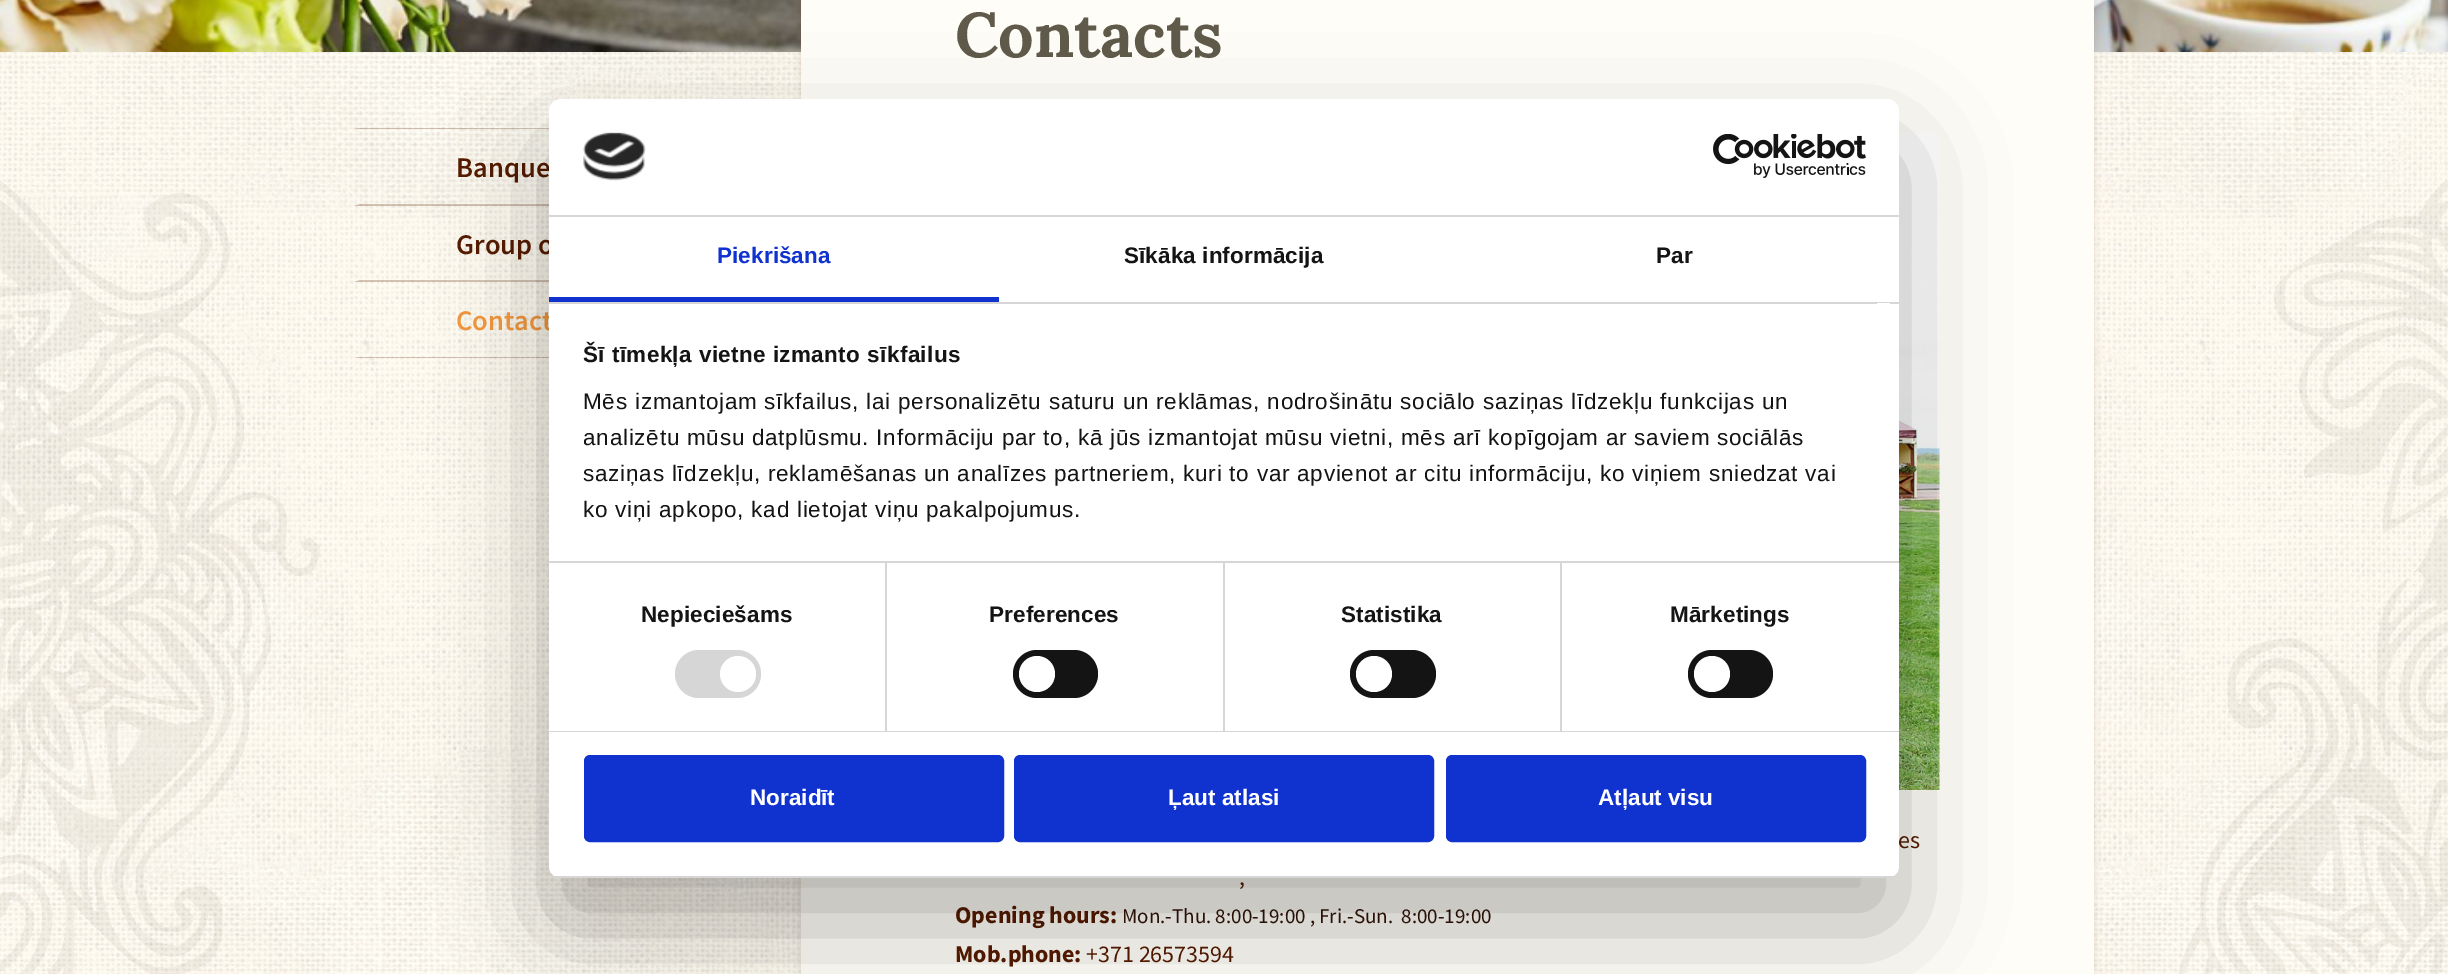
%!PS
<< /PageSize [2448 974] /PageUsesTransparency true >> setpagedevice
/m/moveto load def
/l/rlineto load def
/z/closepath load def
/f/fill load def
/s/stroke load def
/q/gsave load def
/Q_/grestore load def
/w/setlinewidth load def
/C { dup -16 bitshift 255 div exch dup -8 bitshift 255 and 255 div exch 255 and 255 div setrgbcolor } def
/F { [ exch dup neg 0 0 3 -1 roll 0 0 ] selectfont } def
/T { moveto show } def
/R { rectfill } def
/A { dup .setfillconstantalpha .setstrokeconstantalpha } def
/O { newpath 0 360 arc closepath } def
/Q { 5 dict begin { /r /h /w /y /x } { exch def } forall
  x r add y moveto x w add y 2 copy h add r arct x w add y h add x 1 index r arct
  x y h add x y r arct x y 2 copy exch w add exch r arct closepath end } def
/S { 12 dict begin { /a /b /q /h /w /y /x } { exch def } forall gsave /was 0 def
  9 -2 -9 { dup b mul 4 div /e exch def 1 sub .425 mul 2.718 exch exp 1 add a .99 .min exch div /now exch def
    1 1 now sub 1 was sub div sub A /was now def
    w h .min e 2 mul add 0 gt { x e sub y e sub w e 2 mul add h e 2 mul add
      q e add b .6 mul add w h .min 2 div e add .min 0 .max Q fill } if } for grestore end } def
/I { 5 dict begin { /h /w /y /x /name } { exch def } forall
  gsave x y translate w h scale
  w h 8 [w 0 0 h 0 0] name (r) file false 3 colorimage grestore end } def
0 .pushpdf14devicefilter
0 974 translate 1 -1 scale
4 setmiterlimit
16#FFFFFF C
0 0 2448 974 R
(1.rgb) 0 0 2448 52 I
(2.rgb) 0 52 2448 922 I
(3.rgb) 0 181 320 793 I
0.25 A
16#561B00 C
354 128 m 362 0 l 0 1 l -356 0 l z f
716 206 m -362 0 l 6 -2 l 356 0 l z f
/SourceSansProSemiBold-SemiBold 28.5 F
1 A
(Banque) 456 177 T
0.25 A
716 282 m -362 0 l 6 -2 l 356 0 l z f
1 A
(Group o) 456 254 T
0.25 A
716 358 m -362 0 l 6 -1 l 356 0 l z f
1 A
16#F2973E C
(Contact) 456 330 T
16#571B04 C
801 -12 1293 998 0 4 .13 S
16#FFFDF7 C
801 0 1293 974 R
/Lora-Bold 63 F
16#5F5A4A C
(Contacts) 955 57 T
(4.rgb) 1899 133 41 657 I
/SourceSansPro-Regular 24 F
16#561B00 C
(es) 1898 848 T
(,) 1239 885 T
/SourceSansPro-Bold 24 F
(Opening hours:) 955 923 T
/SourceSansPro-Regular 21 F
16#301306 C
(Mon.-Thu. 8:00-19:00 , Fri.-Sun.  8:00-19:00) 1122 923 T
/SourceSansPro-Bold 24 F
16#561B00 C
(Mob.phone:) 955 962 T
/SourceSansPro-Regular 24 F
(+371 26573594) 1086 962 T
(5.rgb) 2179 180 269 794 I
16#000000 C
549 147 1350 779 12 51 .3 S
16#FFFFFF C
549 99 1350 779 12 Q f
16#D6D6D6 C
549 215 1350 2 R
(6.rgb) 583 132 63 49 I
(7.rgb) 1713 134 153 44 I
549 302 1350 2 R
16#1032CF C
549 297 450 5 R
/LiberationSans-Bold 22.5 F
717 263 m .1 0 (Piekrišana) ashow
16#141414 C
1124 263 m .1 0 (Sīkāka informācija) ashow
1656 263 m .1 0 (Par) ashow
16#D6D6D6 C
549 561 1350 2 R
16#FFFFFF C
1877 303 13 1 R
16#141414 C
583 362 m .4 0 (Šī tīmekļa vietne izmanto sīkfailus) ashow
/LiberationSans-Regular 22.5 F
583 409 m .75 0 (Mēs izmantojam sīkfailus, lai personalizētu saturu un reklāmas, nodrošinātu sociālo saziņas līdzekļu funkcijas un) ashow
583 445 m .75 0 (analizētu mūsu datplūsmu. Informāciju par to, kā jūs izmantojat mūsu vietni, mēs arī kopīgojam ar saviem sociālās) ashow
583 481 m .75 0 (saziņas līdzekļu, reklamēšanas un analīzes partneriem, kuri to var apvienot ar citu informāciju, ko viņiem sniedzat vai) ashow
583 517 m .75 0 (ko viņi apkopo, kad lietojat viņu pakalpojumus.) ashow
16#D6D6D6 C
549 731 1350 1 R
16#E5E5E5 C
549 561 1 2 R
16#D6D6D6 C
885 563 2 168 R
/LiberationSans-Bold 22.5 F
16#141414 C
641 622 m .1 0 (Nepieciešams) ashow
16#D6D6D6 C
675 650 86 48 24 Q f
16#FFFFFF C
738 674 18 O f
16#D6D6D6 C
1223 563 2 168 R
16#141414 C
989 622 m .1 0 (Preferences) ashow
1013 650 85 48 24 Q f
16#FFFFFF C
1037 674 18 O f
16#D6D6D6 C
1560 563 2 168 R
16#141414 C
1341 622 m .1 0 (Statistika) ashow
1350 650 86 48 24 Q f
16#FFFFFF C
1374 674 18 O f
16#141414 C
1670 622 m .1 0 (Mārketings) ashow
1688 650 85 48 24 Q f
16#FFFFFF C
1712 674 18 O f
q
549 99 1350 779 12 Q clip newpath
16#D6D6D6 C
549 876 1350 2 R
Q_
16#1032CF C
585.5 756.5 417 84 4.5 Q q f Q_
3 w
s
16#FFFFFF C
(Noraidīt) 750 805 T
16#1032CF C
1015.5 756.5 417 84 4.5 Q q f Q_
s
16#FFFFFF C
(Ļaut atlasi) 1168 805 T
16#1032CF C
1447.5 756.5 417 84 4.5 Q q f Q_
s
16#FFFFFF C
(Atļaut visu) 1598 805 T
.poppdf14devicefilter showpage
